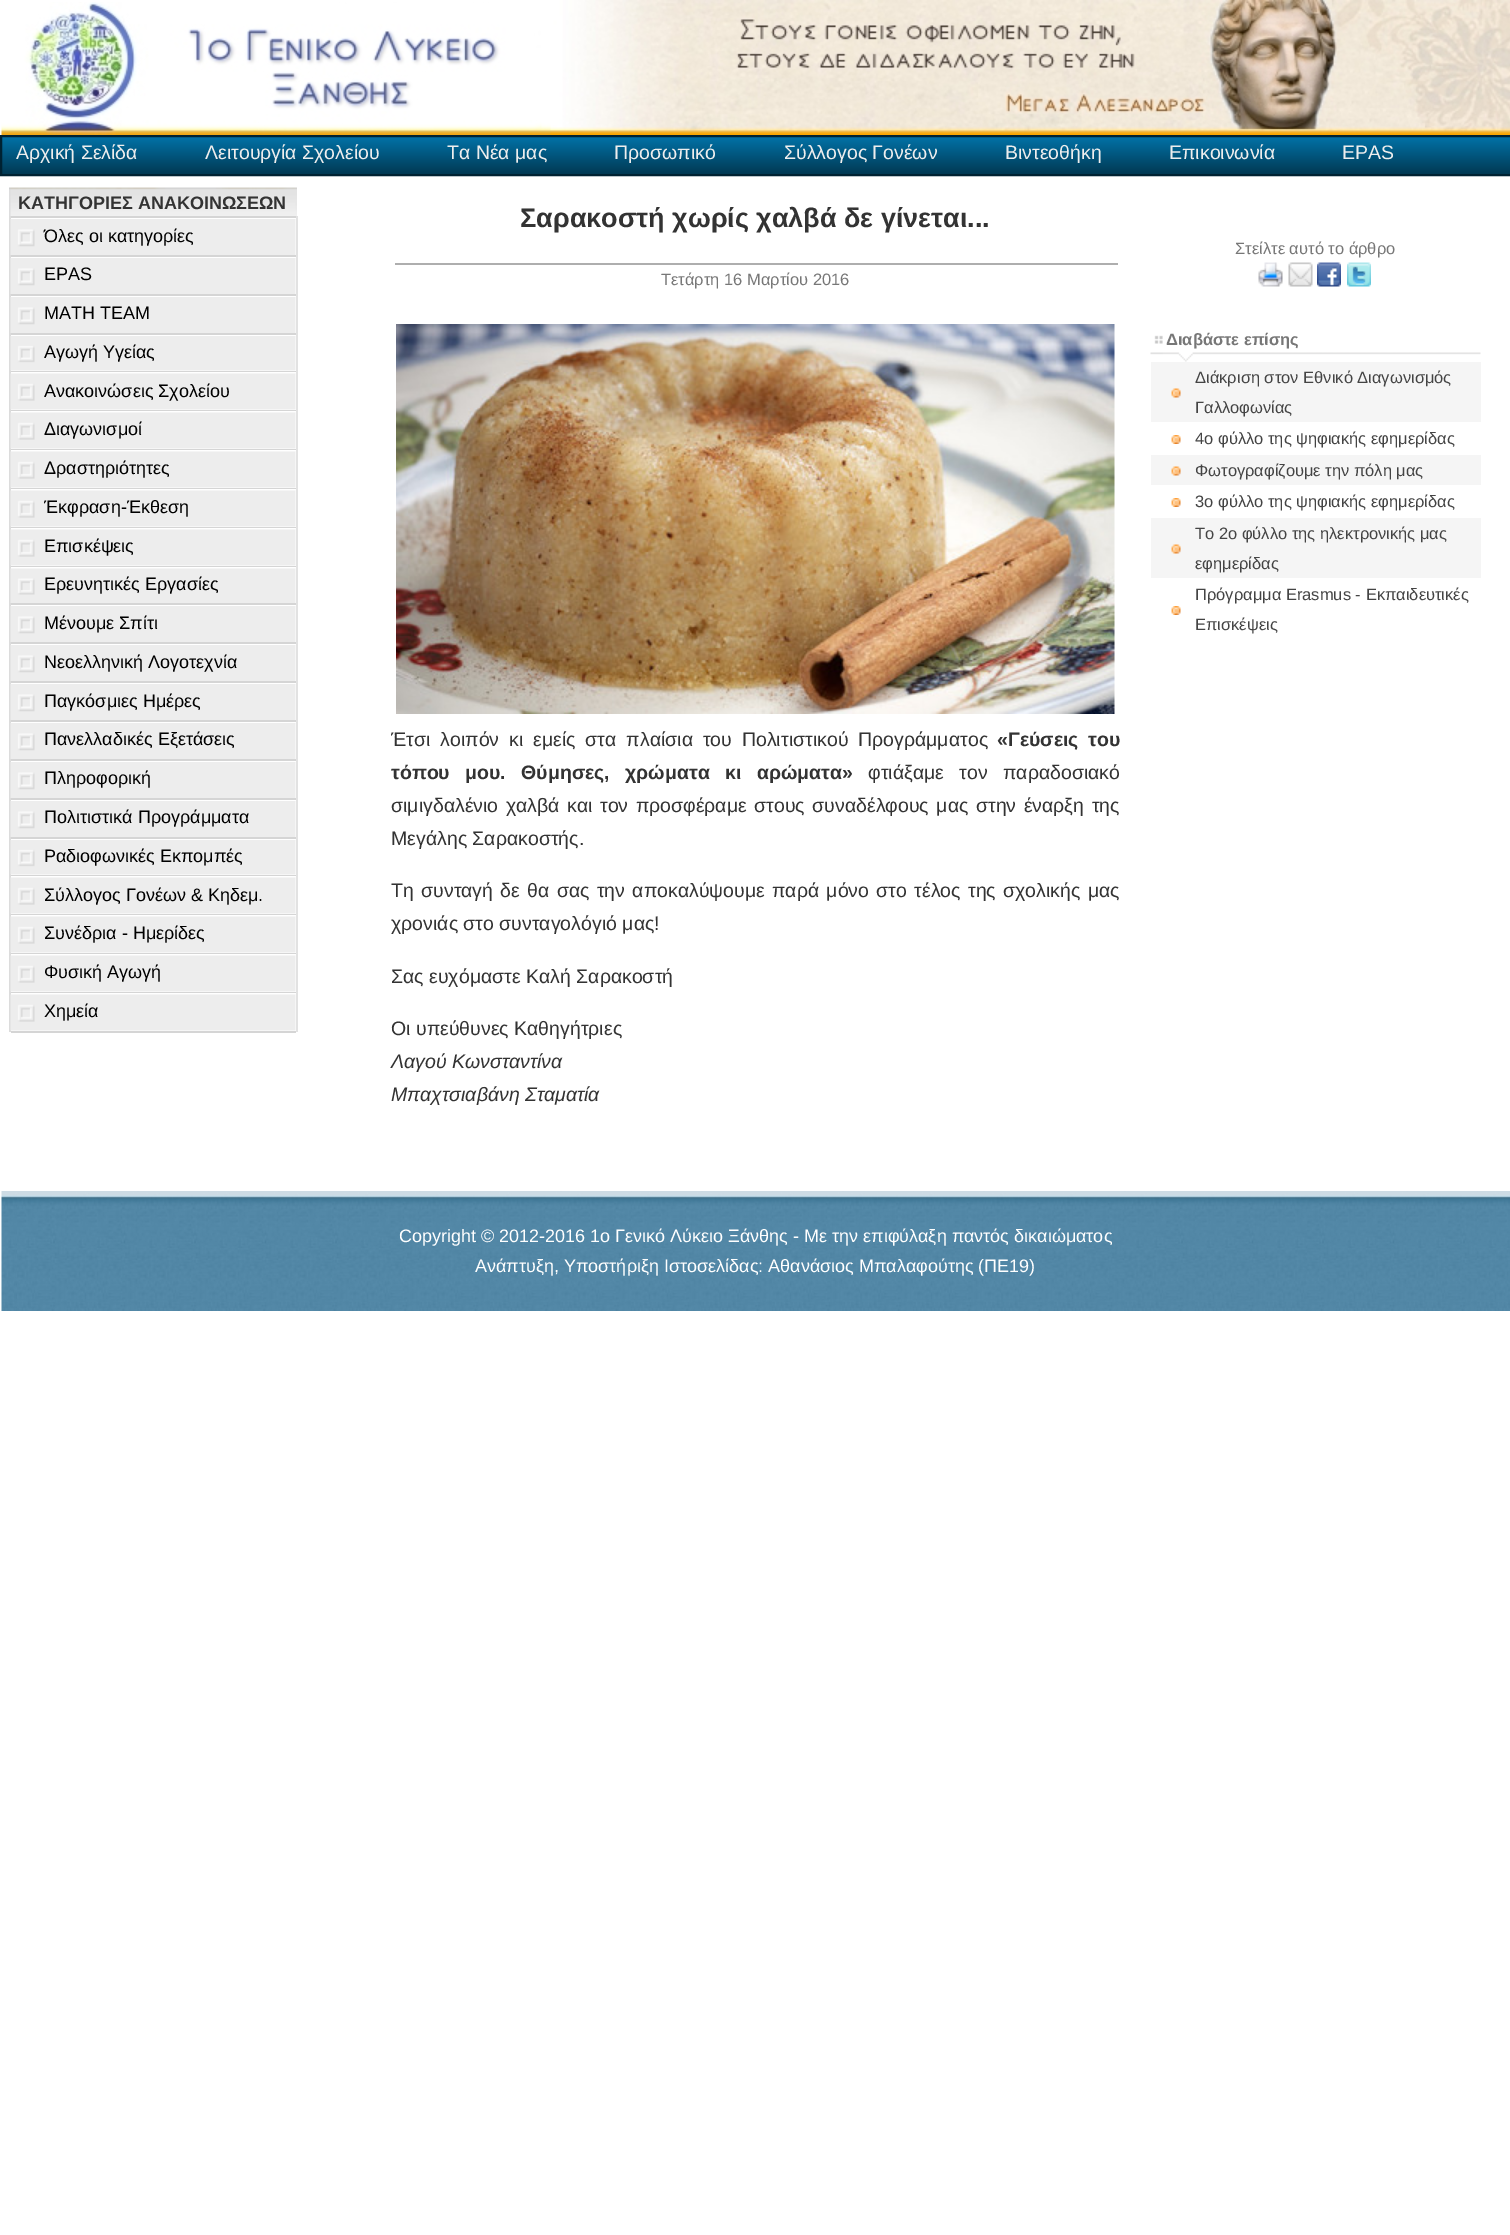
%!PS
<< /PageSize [1510 2235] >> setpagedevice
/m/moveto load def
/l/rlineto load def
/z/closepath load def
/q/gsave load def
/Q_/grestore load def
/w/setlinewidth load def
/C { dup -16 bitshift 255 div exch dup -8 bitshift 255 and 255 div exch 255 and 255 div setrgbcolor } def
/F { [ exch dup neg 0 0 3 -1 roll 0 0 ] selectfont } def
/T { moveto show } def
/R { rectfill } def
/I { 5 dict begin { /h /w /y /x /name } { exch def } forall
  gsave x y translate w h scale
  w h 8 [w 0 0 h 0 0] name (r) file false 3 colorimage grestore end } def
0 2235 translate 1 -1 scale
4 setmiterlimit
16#FFFFFF C
0 0 1510 2235 R
(1.rgb) 1 2 550 133 I
(2.rgb) 550 0 960 135 I
q 2 137 m 1508 0 l 0 37 l -1508 0 l z clip newpath
<< /ShadingType 2 /ColorSpace /DeviceRGB /Coords [1.5 137 1.5 174] /Extend [true true] /Function << /FunctionType 2 /Domain [0 1] /C0 [.008 .447 .655] /C1 [.004 .224 .325] /N 1 >> >> shfill Q_
16#002232 C
2 w
1 136 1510 39 rectstroke
/LiberationSans-Regular 19.5 F
16#EEEEEE C
(Αρχική Σελίδα) 16 159 T
(Λειτουργία Σχολείου) 205 159 T
(Τα Νέα μας) 447 159 T
(Προσωπικό) 614 159 T
(Σύλλογος Γονέων) 784 159 T
(Βιντεοθήκη) 1005 159 T
(Επικοινωνία) 1169 159 T
(EPAS) 1342 159 T
(3.rgb) 9 187 288 29 I
/LiberationSans-Bold 18 F
16#333333 C
(ΚΑΤΗΓΟΡΙΕΣ ΑΝΑΚΟΙΝΩΣΕΩΝ) 18 209 T
16#D5D5D5 C
9 216 288 2 R
16#E2E2E2 C
296 216 2 816 R
16#DCDCDC C
9 216 2 816 R
16#D5D5D5 C
11 255 285 2 R
(4.rgb) 10 219 286 36 I
/LiberationSans-Regular 18 F
16#000000 C
(Όλες οι κατηγορίες) 44 242 T
16#D5D5D5 C
11 294 285 2 R
(4.rgb) 10 258 286 36 I
16#000000 C
(EPAS) 44 280 T
16#D5D5D5 C
11 333 285 2 R
(4.rgb) 10 297 286 36 I
16#000000 C
(MATH TEAM) 44 319 T
16#D5D5D5 C
11 371 285 1 R
(5.rgb) 10 336 286 35 I
16#000000 C
(Αγωγή Υγείας) 44 358 T
16#D5D5D5 C
11 410 285 1 R
(6.rgb) 10 373 286 37 I
16#000000 C
(Ανακοινώσεις Σχολείου) 44 397 T
16#D5D5D5 C
11 449 285 1 R
(6.rgb) 10 412 286 37 I
16#000000 C
(Διαγωνισμοί) 44 435 T
16#D5D5D5 C
11 488 285 1 R
(6.rgb) 10 451 286 37 I
16#000000 C
(Δραστηριότητες) 44 474 T
16#D5D5D5 C
11 527 285 1 R
(6.rgb) 10 490 286 37 I
16#000000 C
(Έκφραση-Έκθεση) 44 513 T
16#D5D5D5 C
11 566 285 1 R
(6.rgb) 10 529 286 37 I
16#000000 C
(Επισκέψεις) 44 552 T
16#D5D5D5 C
11 603 285 2 R
(7.rgb) 10 568 286 35 I
16#000000 C
(Ερευνητικές Εργασίες) 44 590 T
16#D5D5D5 C
11 642 285 2 R
(4.rgb) 10 606 286 36 I
16#000000 C
(Μένουμε Σπίτι) 44 629 T
16#D5D5D5 C
11 681 285 2 R
(4.rgb) 10 645 286 36 I
16#000000 C
(Νεοελληνική Λογοτεχνία) 44 668 T
16#D5D5D5 C
11 720 285 2 R
(4.rgb) 10 684 286 36 I
16#000000 C
(Παγκόσμιες Ημέρες) 44 707 T
16#D5D5D5 C
11 759 285 2 R
(4.rgb) 10 723 286 36 I
16#000000 C
(Πανελλαδικές Εξετάσεις) 44 745 T
16#D5D5D5 C
11 798 285 2 R
(4.rgb) 10 762 286 36 I
16#000000 C
(Πληροφορική) 44 784 T
16#D5D5D5 C
11 837 285 2 R
(4.rgb) 10 801 286 36 I
16#000000 C
(Πολιτιστικά Προγράμματα) 44 823 T
16#D5D5D5 C
11 875 285 1 R
(5.rgb) 10 840 286 35 I
16#000000 C
(Ραδιοφωνικές Εκπομπές) 44 862 T
16#D5D5D5 C
11 914 285 1 R
(6.rgb) 10 877 286 37 I
16#000000 C
(Σύλλογος Γονέων & Κηδεμ.) 44 901 T
16#D5D5D5 C
11 953 285 1 R
(6.rgb) 10 916 286 37 I
16#000000 C
(Συνέδρια - Ημερίδες) 44 939 T
16#D5D5D5 C
11 992 285 1 R
(6.rgb) 10 955 286 37 I
16#000000 C
(Φυσική Αγωγή) 44 978 T
16#D5D5D5 C
11 1031 285 2 R
(6.rgb) 10 994 286 37 I
16#000000 C
(Χημεία) 44 1017 T
/LiberationSans-Bold 27 F
16#333333 C
(Σαρακοστή χωρίς χαλβά δε γίνεται...) 520 227 T
16#AEAEAE C
395 263 723 2 R
/LiberationSans-Regular 16.5 F
16#777777 C
(Τετάρτη 16 Μαρτίου 2016) 661 285 T
(8.rgb) 396 324 719 390 I
/LiberationSans-Regular 19.5 F
16#333333 C
391 746 m 4.5 0 32 (Έτσι λοιπόν κι εμείς στα πλαίσια του Πολιτιστικού Προγράμματος) widthshow
/LiberationSans-Bold 19.5 F
997 746 m 4.5 0 32 («Γεύσεις του) widthshow
391 779 m 10 0 32 (τόπου μου. Θύμησες, χρώματα κι αρώματα») widthshow
/LiberationSans-Regular 19.5 F
868 779 m 10 0 32 (φτιάξαμε τον παραδοσιακό) widthshow
391 812 m 2.1 0 32 (σιμιγδαλένιο χαλβά και τον προσφέραμε στους συναδέλφους μας στην έναρξη της) widthshow
(Μεγάλης Σαρακοστής.) 391 845 T
391 897 m 1.9 0 32 (Τη συνταγή δε θα σας την αποκαλύψουμε παρά μόνο στο τέλος της σχολικής μας) widthshow
(χρονιάς στο συνταγολόγιό μας!) 391 930 T
(Σας ευχόμαστε Καλή Σαρακοστή) 391 983 T
(Οι υπεύθυνες Καθηγήτριες) 391 1035 T
/LiberationSans-Italic 19.5 F
(Λαγού Κωνσταντίνα) 391 1068 T
(Μπαχτσιαβάνη Σταματία) 391 1101 T
/LiberationSans-Regular 16.5 F
16#777777 C
(Στείλτε αυτό το άρθρο) 1235 254 T
(9.rgb) 1258 262 25 25 I
(10.rgb) 1288 262 25 25 I
(11.rgb) 1317 262 24 25 I
(12.rgb) 1347 262 24 25 I
(13.rgb) 1154 335 9 9 I
/LiberationSans-Bold 16.5 F
(Διαβάστε επίσης) 1166 345 T
(14.rgb) 1150 352 331 10 I
16#F5F5F5 C
1151 362 330 60 R
(15.rgb) 1171 388 10 10 I
/LiberationSans-Regular 16.5 F
16#444444 C
(Διάκριση στον Εθνικό Διαγωνισμός) 1195 383 T
(Γαλλοφωνίας) 1195 413 T
(16.rgb) 1171 435 10 9 I
(4ο φύλλο της ψηφιακής εφημερίδας) 1195 444 T
16#F5F5F5 C
1151 455 330 30 R
(15.rgb) 1171 466 10 10 I
16#444444 C
(Φωτογραφίζουμε την πόλη μας) 1195 476 T
(16.rgb) 1171 498 10 9 I
(3ο φύλλο της ψηφιακής εφημερίδας) 1195 507 T
16#F5F5F5 C
1151 518 330 60 R
(15.rgb) 1171 544 10 10 I
16#444444 C
(Το 2ο φύλλο της ηλεκτρονικής μας) 1195 539 T
(εφημερίδας) 1195 569 T
(16.rgb) 1171 606 10 9 I
(Πρόγραμμα Erasmus - Εκπαιδευτικές) 1195 600 T
(Επισκέψεις) 1195 630 T
(17.rgb) 1 1191 1509 120 I
/LiberationSans-Regular 18 F
16#FFFFFF C
(Copyright © 2012-2016 1o Γενικό Λύκειο Ξάνθης - Με την επιφύλαξη παντός δικαιώματος) 399 1242 T
(Ανάπτυξη, Υποστήριξη Ιστοσελίδας: Αθανάσιος Μπαλαφούτης \(ΠΕ19\)) 475 1272 T
showpage
